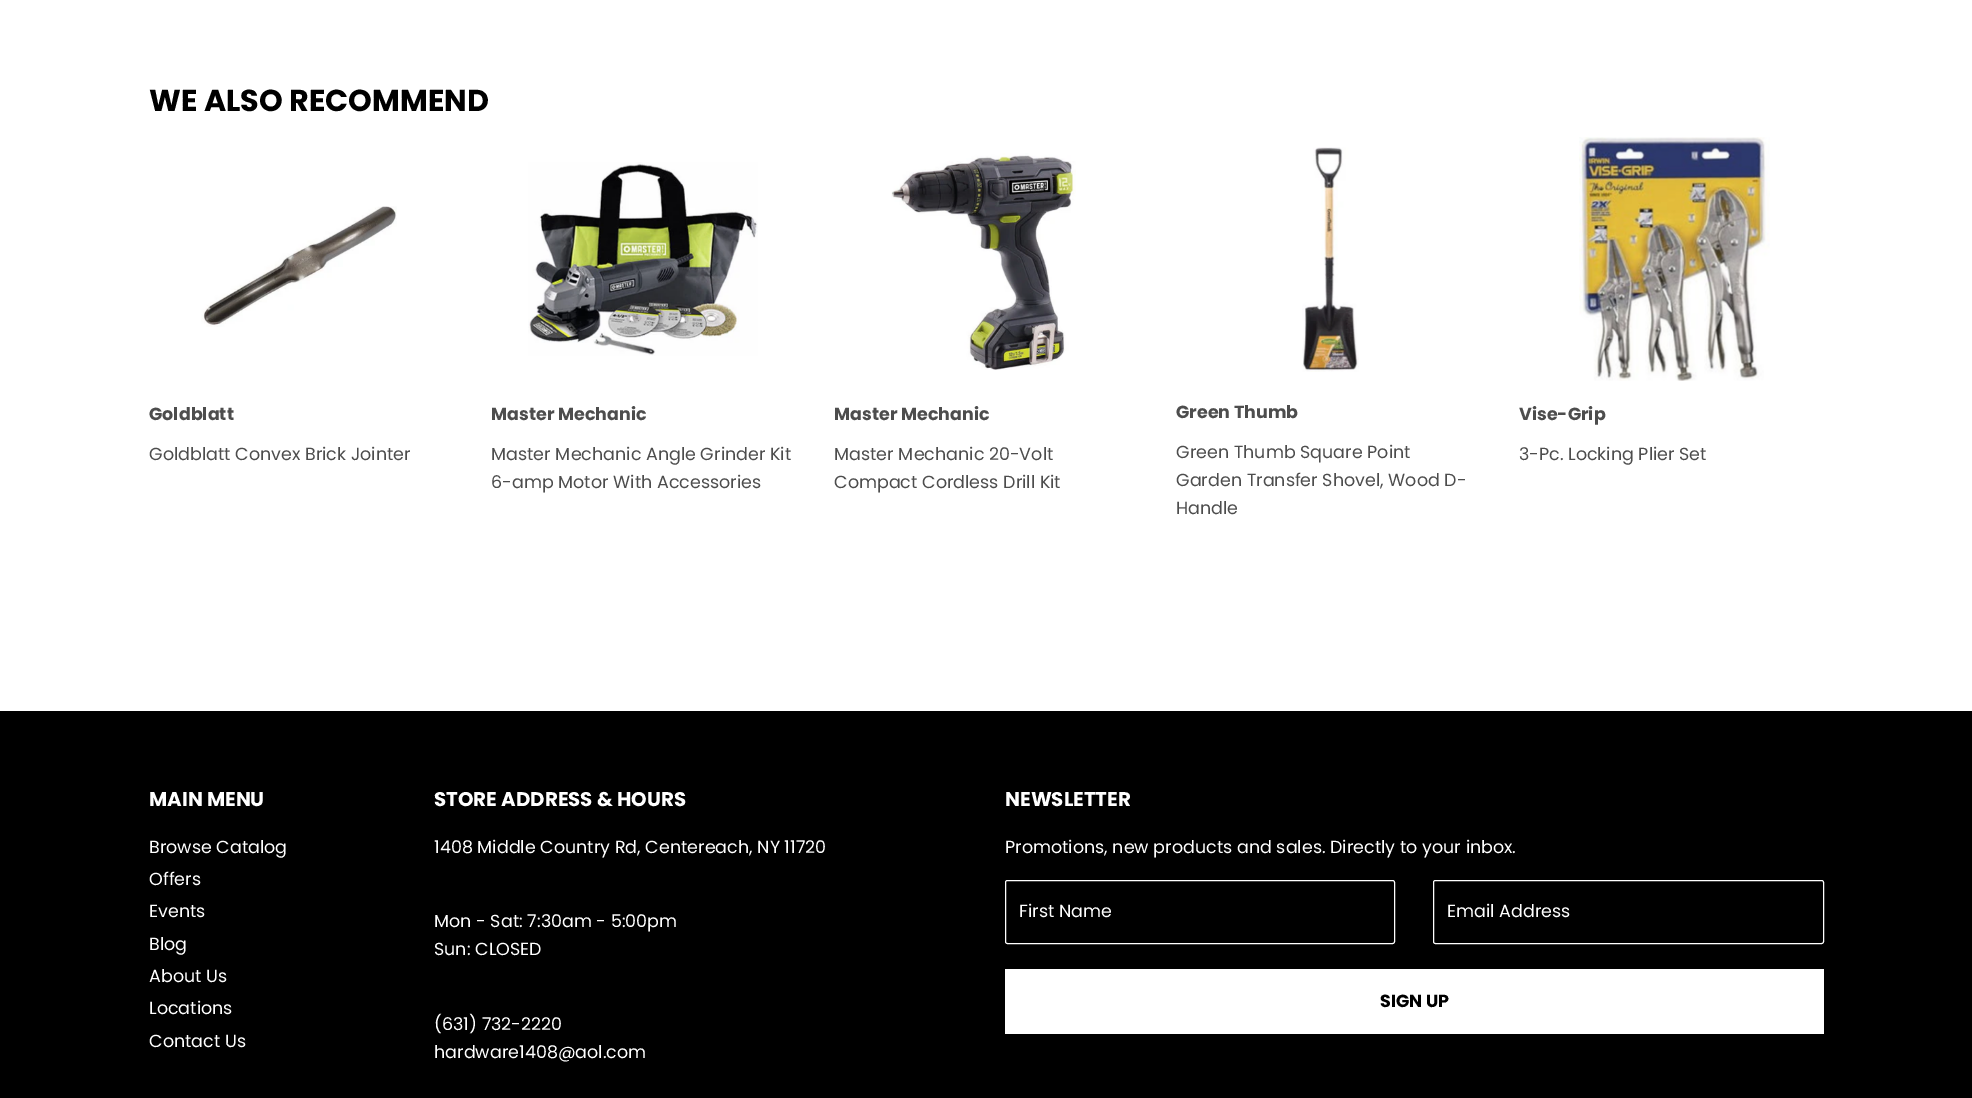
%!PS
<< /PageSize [1972 1098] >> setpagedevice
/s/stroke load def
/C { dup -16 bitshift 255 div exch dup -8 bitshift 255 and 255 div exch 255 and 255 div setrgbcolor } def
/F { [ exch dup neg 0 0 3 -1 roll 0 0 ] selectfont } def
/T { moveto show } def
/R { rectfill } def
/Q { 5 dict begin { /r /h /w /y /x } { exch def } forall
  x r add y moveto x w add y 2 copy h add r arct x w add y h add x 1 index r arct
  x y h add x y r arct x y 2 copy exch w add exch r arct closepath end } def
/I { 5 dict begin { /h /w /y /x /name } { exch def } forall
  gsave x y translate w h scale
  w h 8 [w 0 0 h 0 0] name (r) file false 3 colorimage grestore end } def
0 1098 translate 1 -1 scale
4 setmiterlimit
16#FFFFFF C
0 0 1972 1098 R
/Poppins-Bold 30.25 F
16#000000 C
(WE ALSO RECOMMEND) 149 111 T
(1.rgb) 201 206 196 121 I
/Poppins-Bold 17.5 F
16#4D4D4D C
(Goldblatt) 149 420 T
/Poppins-Regular 17.5 F
(Goldblatt Convex Brick Jointer) 149 460 T
(2.rgb) 528 162 230 194 I
/Poppins-Bold 17.5 F
(Master Mechanic) 491 420 T
/Poppins-Regular 17.5 F
(Master Mechanic Angle Grinder Kit) 491 460 T
(6-amp Motor With Accessories) 491 488 T
(3.rgb) 891 153 185 217 I
/Poppins-Bold 17.5 F
(Master Mechanic) 834 420 T
/Poppins-Regular 17.5 F
(Master Mechanic 20-Volt) 834 460 T
(Compact Cordless Drill Kit) 834 488 T
(4.rgb) 1302 147 57 225 I
/Poppins-Bold 17.5 F
(Green Thumb) 1176 418 T
/Poppins-Regular 17.5 F
(Green Thumb Square Point) 1176 458 T
(Garden Transfer Shovel, Wood D-) 1176 486 T
(Handle) 1176 514 T
(5.rgb) 1579 137 191 244 I
/Poppins-Bold 17.5 F
(Vise-Grip) 1519 420 T
/Poppins-Regular 17.5 F
(3-Pc. Locking Plier Set) 1519 460 T
16#000000 C
0 711 1972 387 R
/Poppins-Bold 19.8 F
16#FFFFFF C
(MAIN MENU) 149 806 T
/Poppins-Regular 17.5 F
(Browse Catalog) 149 853 T
(Offers) 149 885 T
(Events) 149 917 T
(Blog) 149 950 T
(About Us) 149 982 T
(Locations) 149 1014 T
(Contact Us) 149 1047 T
/Poppins-Bold 19.8 F
(STORE ADDRESS & HOURS) 434 806 T
/Poppins-Regular 17.5 F
(1408 Middle Country Rd, Centereach, NY 11720) 434 853 T
(Mon - Sat: 7:30am - 5:00pm) 434 927 T
(Sun: CLOSED) 434 955 T
(\(631\) 732-2220) 434 1030 T
(hardware1408@aol.com) 434 1058 T
/Poppins-Bold 19.8 F
(NEWSLETTER) 1005 806 T
/Poppins-Regular 17.5 F
(Promotions, new products and sales. Directly to your inbox.) 1005 853 T
1005.5 880.5 389 63 2 Q s
(First Name) 1019 917 T
1433.5 880.5 390 63 2 Q s
(Email Address) 1447 917 T
1005 969 819 65 R
/Poppins-Bold 17.5 F
16#000000 C
(SIGN UP) 1380 1007 T
showpage
